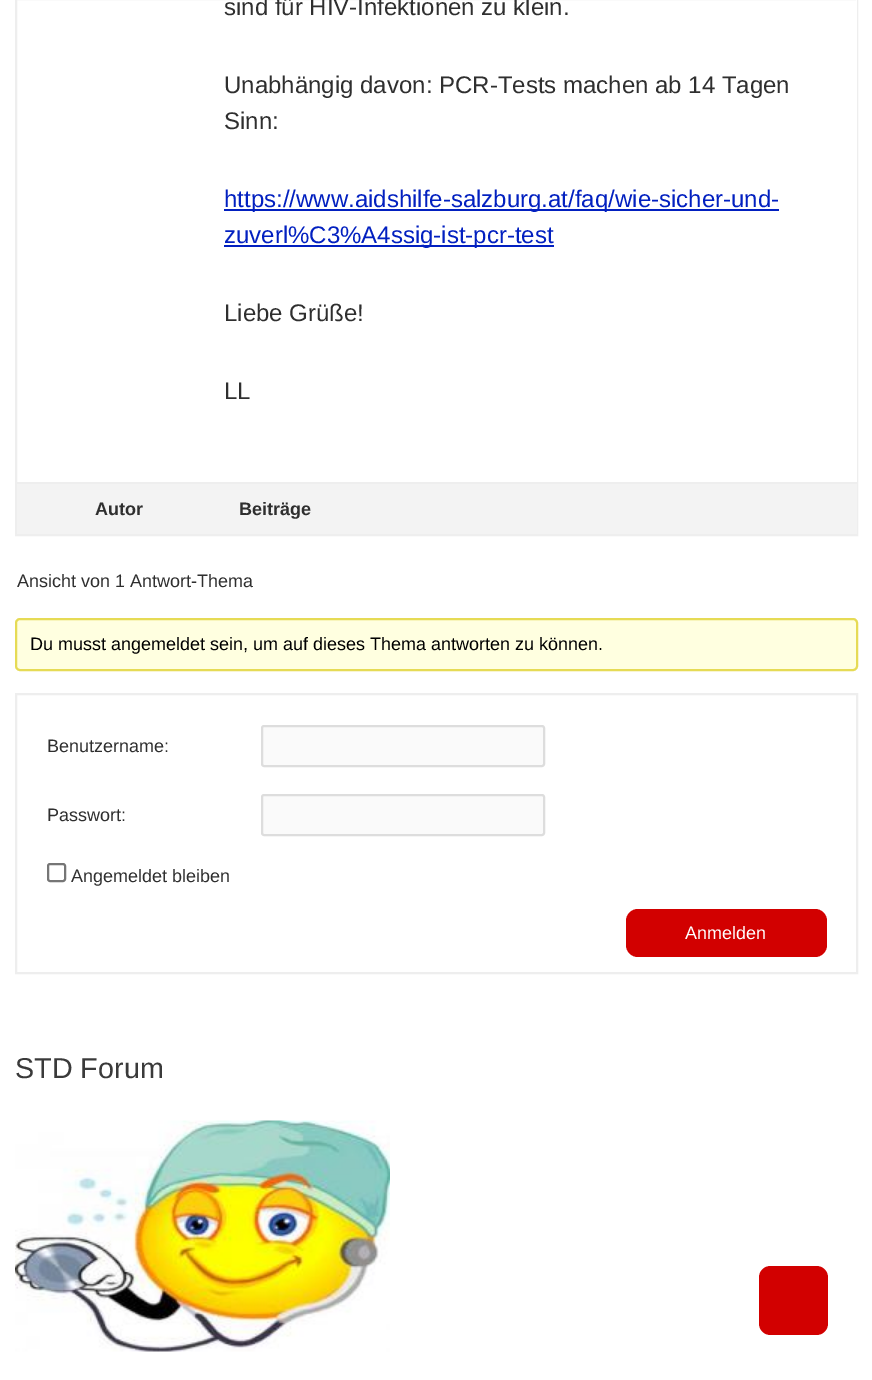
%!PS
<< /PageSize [872 1380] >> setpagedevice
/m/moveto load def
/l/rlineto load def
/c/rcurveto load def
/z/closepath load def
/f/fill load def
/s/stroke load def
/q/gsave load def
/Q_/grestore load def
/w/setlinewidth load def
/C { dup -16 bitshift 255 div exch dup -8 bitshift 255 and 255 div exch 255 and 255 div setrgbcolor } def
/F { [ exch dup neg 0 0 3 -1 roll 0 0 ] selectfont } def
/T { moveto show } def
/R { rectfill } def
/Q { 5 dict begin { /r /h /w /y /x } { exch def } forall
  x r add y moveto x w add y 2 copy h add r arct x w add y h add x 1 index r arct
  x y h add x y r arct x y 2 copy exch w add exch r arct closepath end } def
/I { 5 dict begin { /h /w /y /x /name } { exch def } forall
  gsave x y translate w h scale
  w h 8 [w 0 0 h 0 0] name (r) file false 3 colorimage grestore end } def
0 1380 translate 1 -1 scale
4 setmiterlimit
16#FFFFFF C
0 0 872 1380 R
16#EEEEEE C
2 w
16 -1 841 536 rectstroke
16#FFFFFF C
856 0 1 482 R
/LiberationSans-Regular 24 F
16#2F2F2F C
(sind für HIV-Infektionen zu klein.) 224 15 T
(Unabhängig davon: PCR-Tests machen ab 14 Tagen) 224 93 T
(Sinn:) 224 129 T
16#0220C0 C
224 209 555 2 R
(https://www.aidshilfe-salzburg.at/faq/wie-sicher-und-) 224 207 T
224 245 330 2 R
(zuverl%C3%A4ssig-ist-pcr-test) 224 243 T
16#2F2F2F C
(Liebe Grüße!) 224 321 T
(LL) 224 399 T
16#F3F3F3 C
17 484 840 50 R
16#EEEEEE C
17 482 840 2 R
/LiberationSans-Bold 18 F
16#2F2F2F C
(Autor) 95 515 T
(Beiträge) 239 515 T
/LiberationSans-Regular 18 F
(Ansicht von 1 Antwort-Thema) 17 587 T
16#FFFFE0 C
16 619 841 51 4 Q q f Q_
16#E6DB55 C
s
16#000000 C
(Du musst angemeldet sein, um auf dieses Thema antworten zu können.) 30 650 T
16#EEEEEE C
16 694 841 279 rectstroke
16#2F2F2F C
(Benutzername:) 47 752 T
16#FAFAFA C
262 726 282 40 2 Q q f Q_
16#DDDDDD C
s
16#2F2F2F C
(Passwort:) 47 821 T
16#FAFAFA C
262 795 282 40 2 Q q f Q_
16#DDDDDD C
s
16#767676 C
48 864 17 17 2 Q s
16#2F2F2F C
(Angemeldet bleiben) 71 882 T
16#D20000 C
626 909 201 48 12 Q f
16#FFFFFF C
(Anmelden) 685 939 T
/LiberationSans-Regular 28.75 F
16#3A3A3A C
(STD Forum) 15 1078 T
(1.rgb) 15 1120 375 232 I
16#D20000 C
816 1335 m -45 0 l -7 0 -12 -5 -12 -12 c 0 -45 l 0 -7 5 -12 12 -12 c 45 0 l 7 0 12 5 12 12 c 0 45 l 0 7 -5 12 -12 12 c z f
showpage
